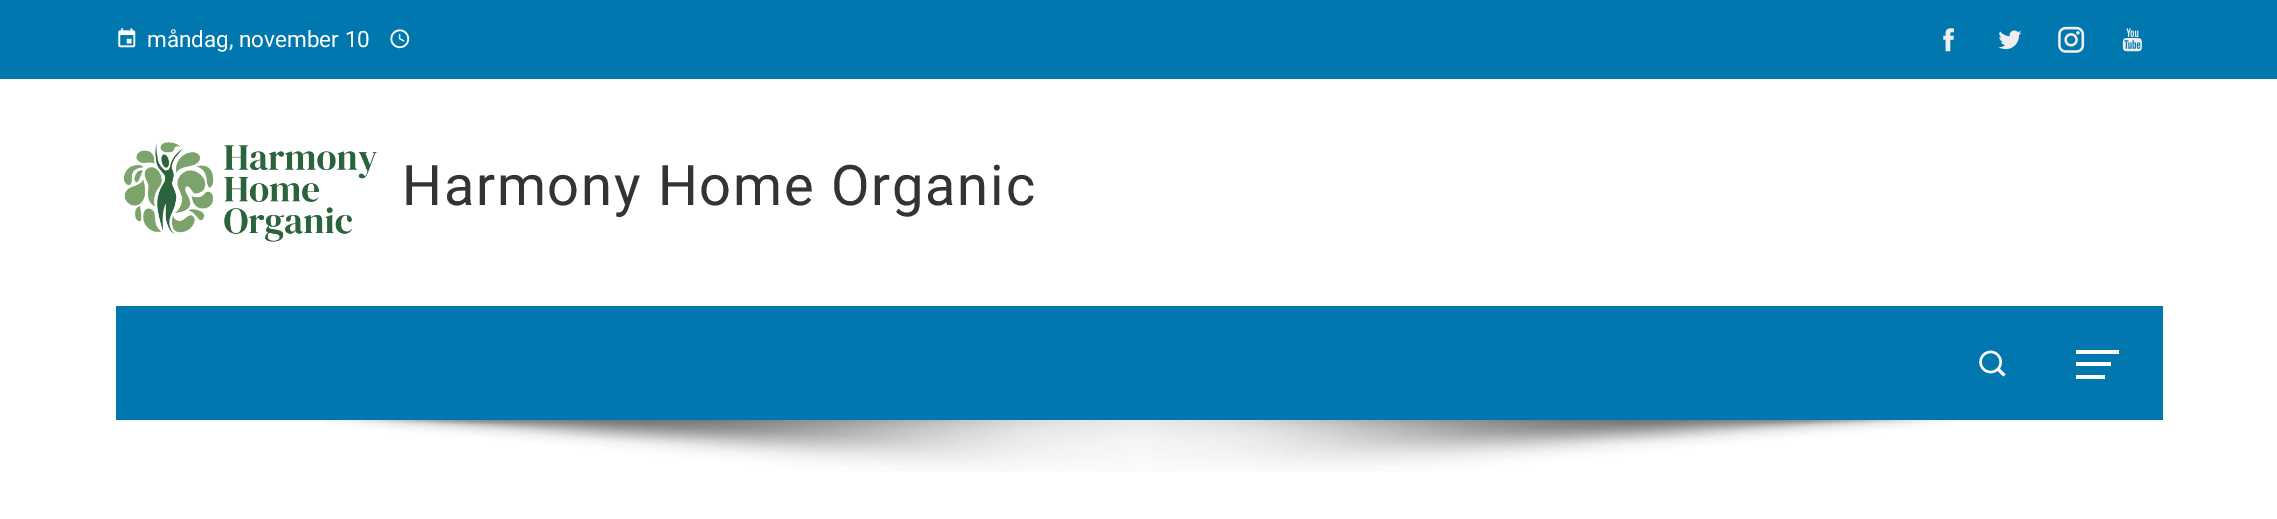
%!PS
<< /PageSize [2277 519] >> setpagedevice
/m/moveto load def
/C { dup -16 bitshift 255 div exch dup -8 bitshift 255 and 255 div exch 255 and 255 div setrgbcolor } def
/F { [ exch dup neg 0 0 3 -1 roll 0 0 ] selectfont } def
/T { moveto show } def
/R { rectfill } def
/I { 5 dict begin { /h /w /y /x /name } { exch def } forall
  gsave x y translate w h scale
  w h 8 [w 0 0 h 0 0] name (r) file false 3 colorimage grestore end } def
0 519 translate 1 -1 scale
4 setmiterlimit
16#FFFFFF C
0 0 2277 519 R
16#0078AF C
0 0 2277 79 R
(1.rgb) 118 28 18 20 I
/Roboto-Regular 22.5 F
16#FFFFFF C
(måndag, november 10) 147 47 T
(2.rgb) 390 29 20 20 I
(3.rgb) 1943 28 11 24 I
(4.rgb) 1998 30 24 20 I
(5.rgb) 2058 26 27 27 I
(6.rgb) 2122 28 20 24 I
(7.rgb) 123 142 255 100 I
/Roboto-Regular 56 F
16#333333 C
402 205 m 1.75 0 (Harmony Home Organic) ashow
16#0078AF C
116 306 2047 114 R
(8.rgb) 1979 350 27 27 I
16#FFFFFF C
2076 350 43 4 R
2076 362 35 4 R
2076 375 29 4 R
(9.rgb) 323 420 1631 52 I
showpage
